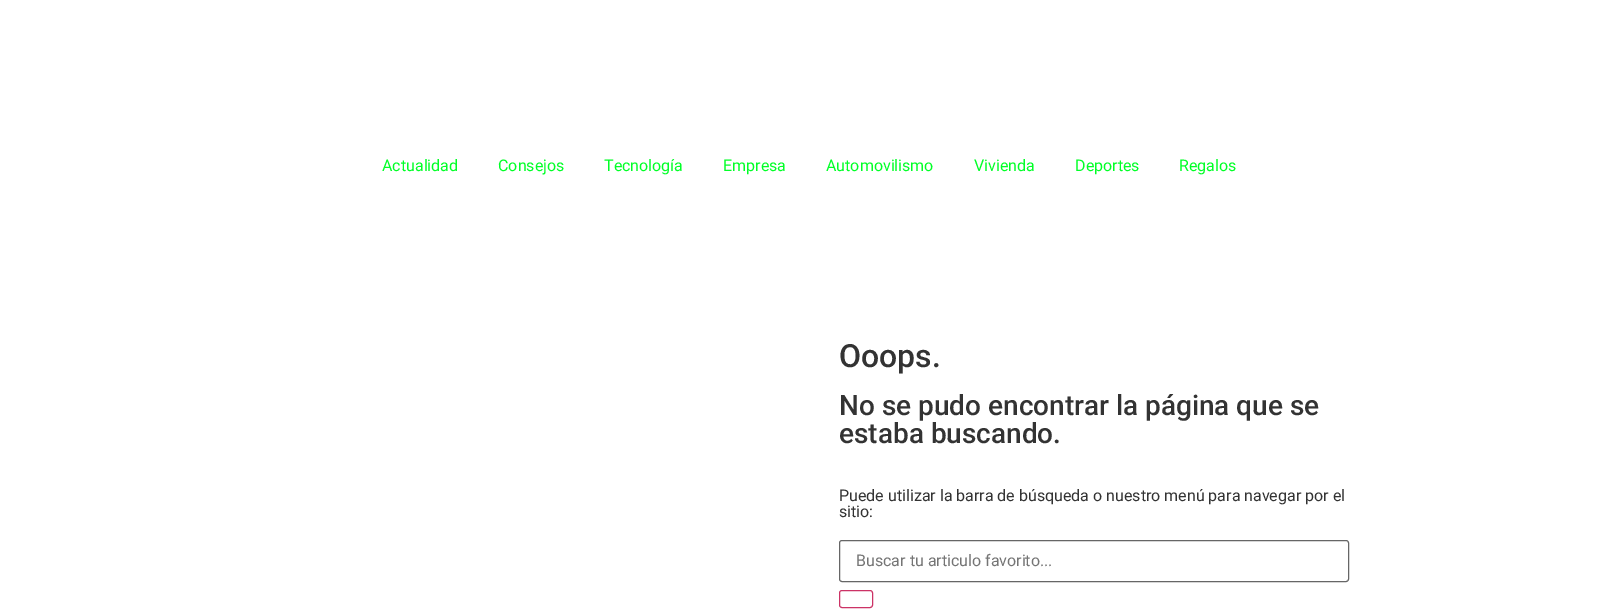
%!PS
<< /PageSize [1618 616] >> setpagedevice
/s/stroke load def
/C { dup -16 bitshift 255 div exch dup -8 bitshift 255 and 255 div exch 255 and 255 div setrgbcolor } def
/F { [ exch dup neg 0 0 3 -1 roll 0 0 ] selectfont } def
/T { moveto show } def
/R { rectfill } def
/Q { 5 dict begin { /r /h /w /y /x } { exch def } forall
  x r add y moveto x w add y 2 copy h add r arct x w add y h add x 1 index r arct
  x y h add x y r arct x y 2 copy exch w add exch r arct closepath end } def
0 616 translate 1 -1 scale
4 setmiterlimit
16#FFFFFF C
0 0 1618 616 R
/Roboto-Regular 16 F
16#01FF27 C
(Actualidad) 382 171 T
(Consejos) 498 171 T
(Tecnología) 604 171 T
(Empresa) 723 171 T
(Automovilismo) 826 171 T
(Vivienda) 974 171 T
(Deportes) 1075 171 T
(Regalos) 1179 171 T
/Roboto-Medium 32 F
16#333333 C
(Ooops.) 839 367 T
/Roboto-Medium 28 F
(No se pudo encontrar la página que se) 839 415 T
(estaba buscando.) 839 443 T
/Roboto-Regular 16 F
(Puede utilizar la barra de búsqueda o nuestro menú para navegar por el) 839 501 T
(sitio:) 839 517 T
16#666666 C
839.5 540.5 509 41 2.5 Q s
16#757575 C
(Buscar tu articulo favorito...) 856 566 T
16#CC3366 C
839.5 590.5 33 17 2.5 Q s
showpage
